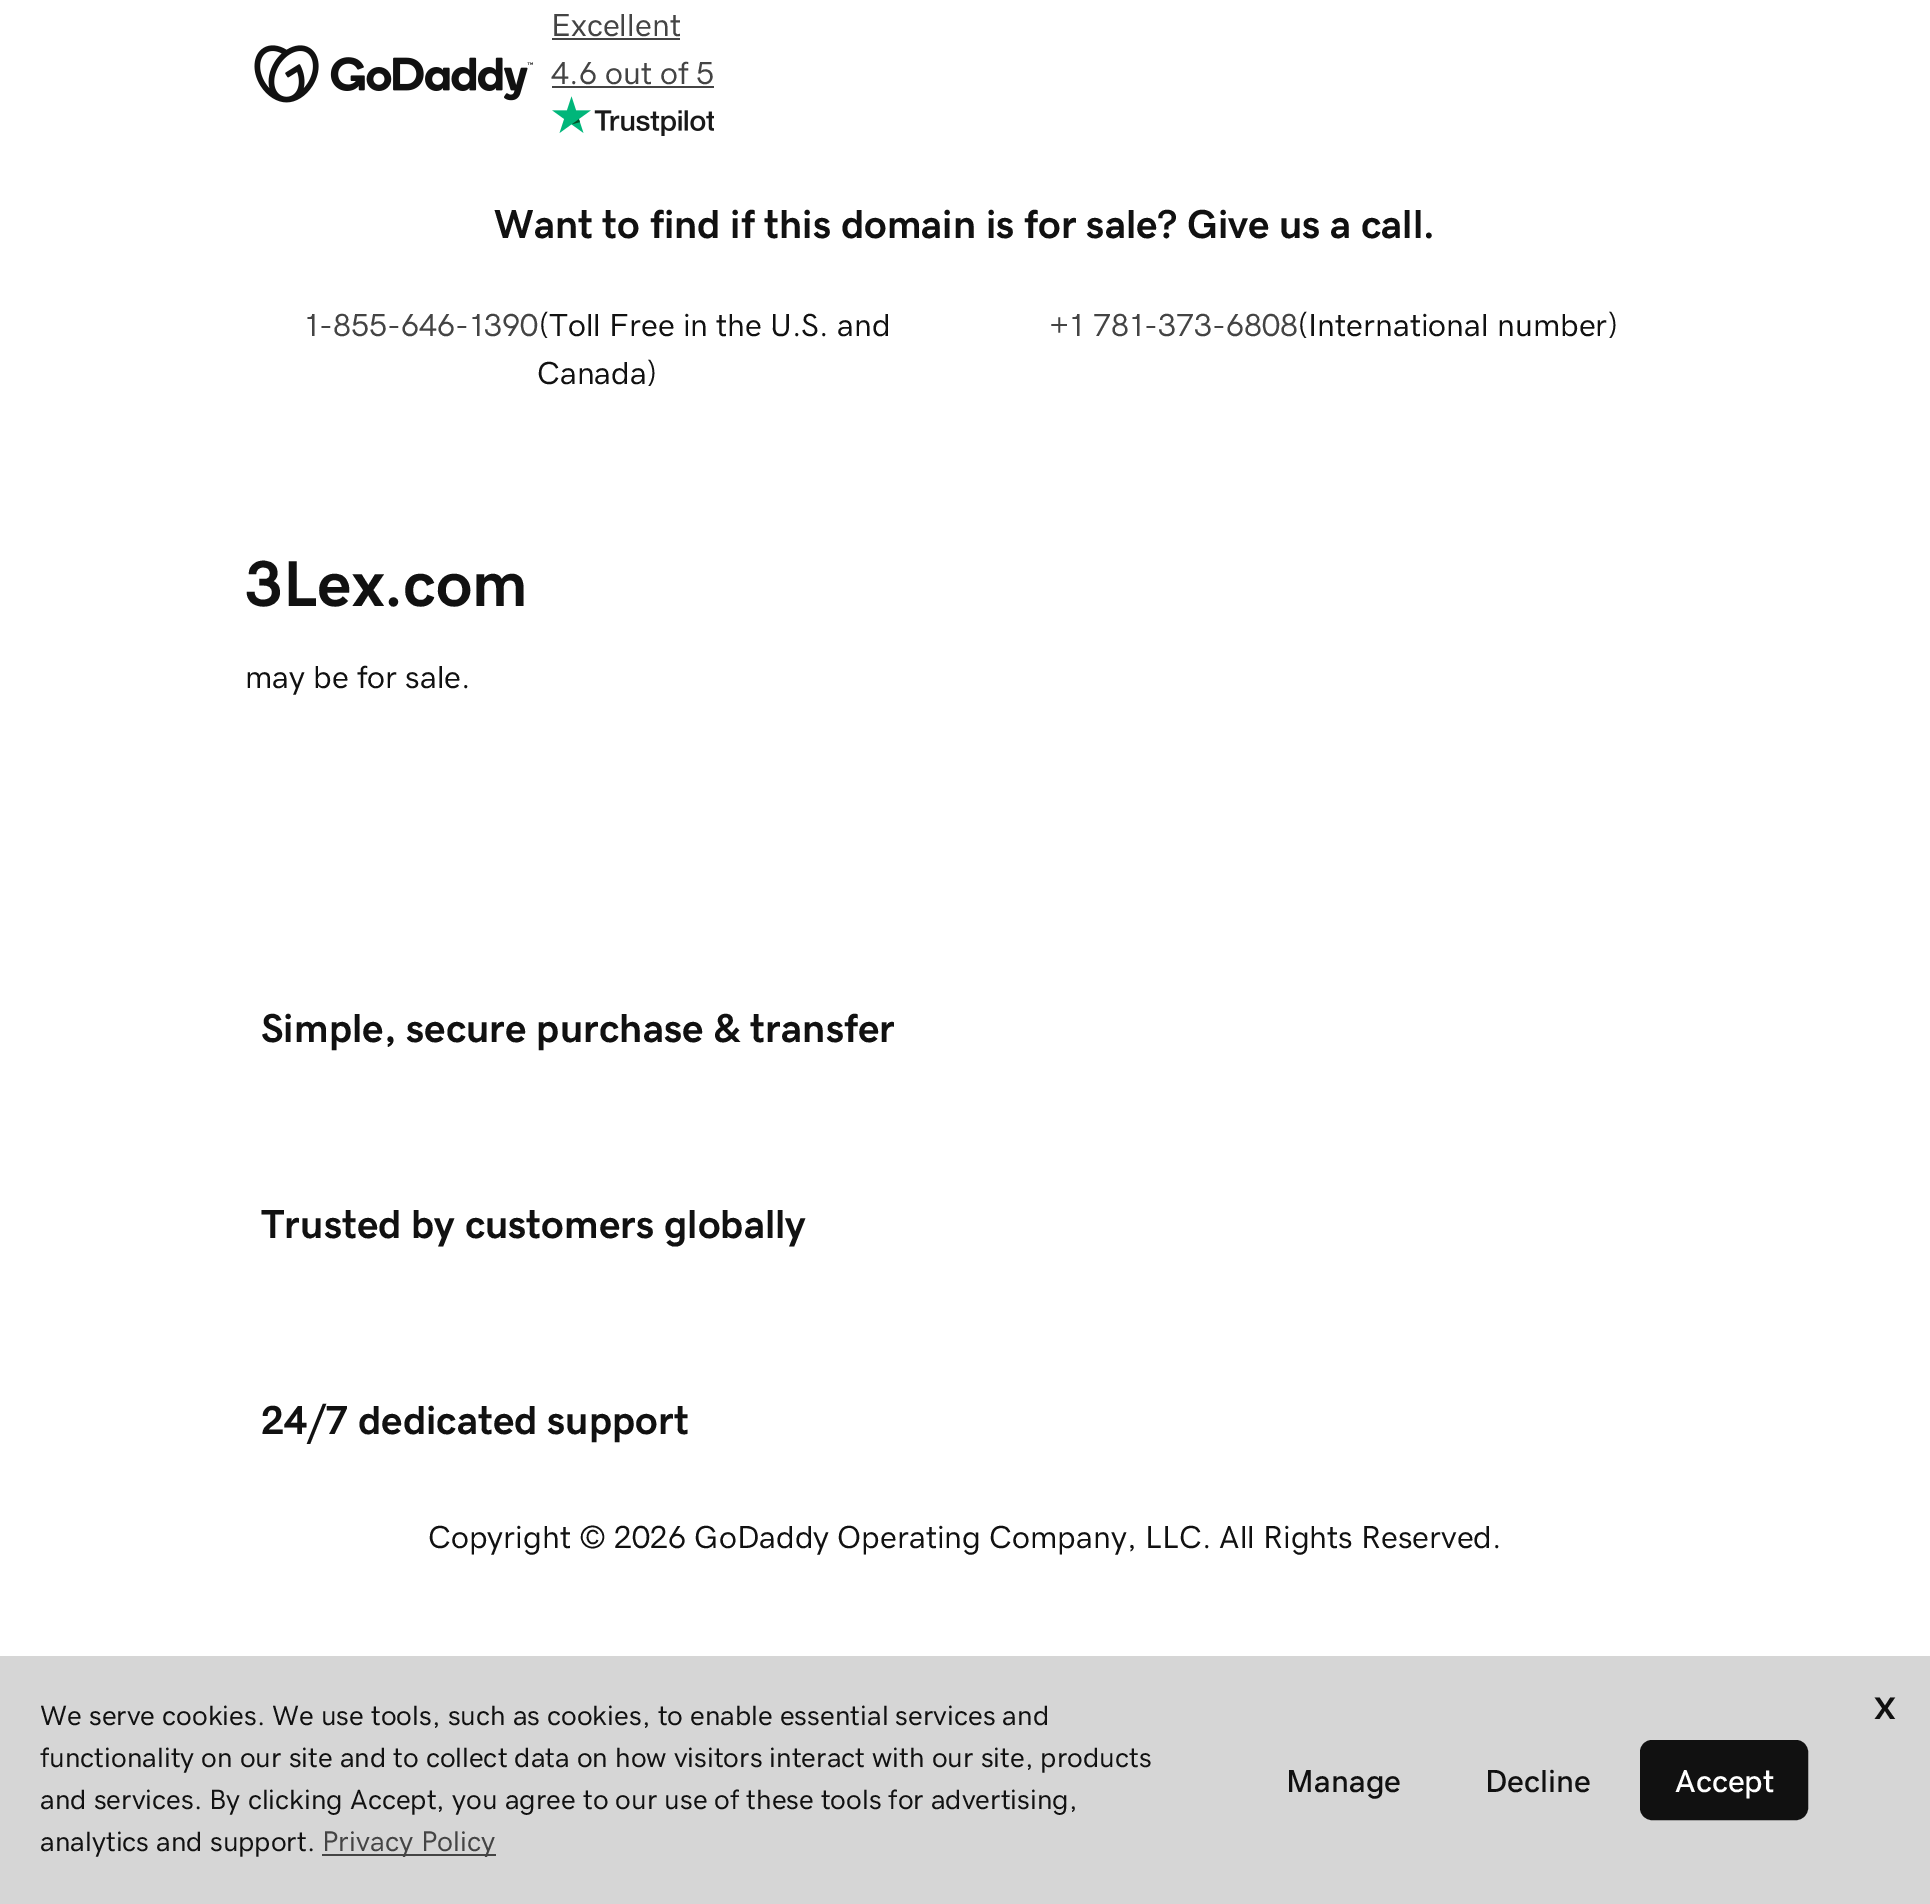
%!PS
<< /PageSize [1930 1904] >> setpagedevice
/f/fill load def
/s/stroke load def
/q/gsave load def
/Q_/grestore load def
/w/setlinewidth load def
/C { dup -16 bitshift 255 div exch dup -8 bitshift 255 and 255 div exch 255 and 255 div setrgbcolor } def
/F { [ exch dup neg 0 0 3 -1 roll 0 0 ] selectfont } def
/T { moveto show } def
/R { rectfill } def
/Q { 5 dict begin { /r /h /w /y /x } { exch def } forall
  x r add y moveto x w add y 2 copy h add r arct x w add y h add x 1 index r arct
  x y h add x y r arct x y 2 copy exch w add exch r arct closepath end } def
/I { 5 dict begin { /h /w /y /x /name } { exch def } forall
  gsave x y translate w h scale
  w h 8 [w 0 0 h 0 0] name (r) file false 3 colorimage grestore end } def
0 1904 translate 1 -1 scale
4 setmiterlimit
16#FFFFFF C
0 0 1930 1904 R
(1.rgb) 254 45 279 58 I
/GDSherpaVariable-Regular 32 F
16#444444 C
(Excellent) 551 36 T
552 38 128 2 R
(4.6 out of 5) 551 84 T
552 86 162 2 R
(2.rgb) 552 96 162 40 I
/GDSherpaVariable-Bold 40.5 F
16#111111 C
(Want to find if this domain is for sale? Give us a call.) 494 238 T
/GDSherpaVariable-Regular 32 F
16#444444 C
(1-855-646-1390) 304 336 T
16#111111 C
(\(Toll Free in the U.S. and) 539 336 T
(Canada\)) 537 384 T
16#444444 C
(+1 781-373-6808) 1049 336 T
16#111111 C
(\(International number\)) 1298 336 T
/GDSherpaVariable-Bold 65 F
(3Lex.com) 245 606 T
/GDSherpaVariable-Regular 32 F
(may be for sale.) 245 688 T
/GDSherpaVariable-Bold 40.5 F
(Simple, secure purchase & transfer) 261 1042 T
(Trusted by customers globally) 261 1238 T
(24/7 dedicated support) 261 1434 T
/GDSherpaVariable-Regular 32 F
(Copyright © 2026 GoDaddy Operating Company, LLC. All Rights Reserved.) 428 1548 T
16#D6D6D6 C
0 1656 1930 248 R
/GDSherpaVariable-Regular 28 F
16#111111 C
(We serve cookies. We use tools, such as cookies, to enable essential services and) 40 1725 T
(functionality on our site and to collect data on how visitors interact with our site, products) 40 1767 T
(and services. By clicking Accept, you agree to our use of these tools for advertising,) 40 1809 T
(analytics and support.) 40 1851 T
16#444444 C
322 1854 174 2 R
/GDSherpaVariable-Regular 28.5 F
(Privacy Policy) 322 1851 T
/GDSherpaVariable-Medium 32 F
16#111111 C
(Manage) 1286 1792 T
(Decline) 1485 1792 T
1641 1741 166 78 11 Q q f Q_
2 w
s
16#FFFFFF C
(Accept) 1675 1792 T
/GDSherpaVariable-Medium 44 F
16#111111 C
(x) 1874 1719 T
showpage
